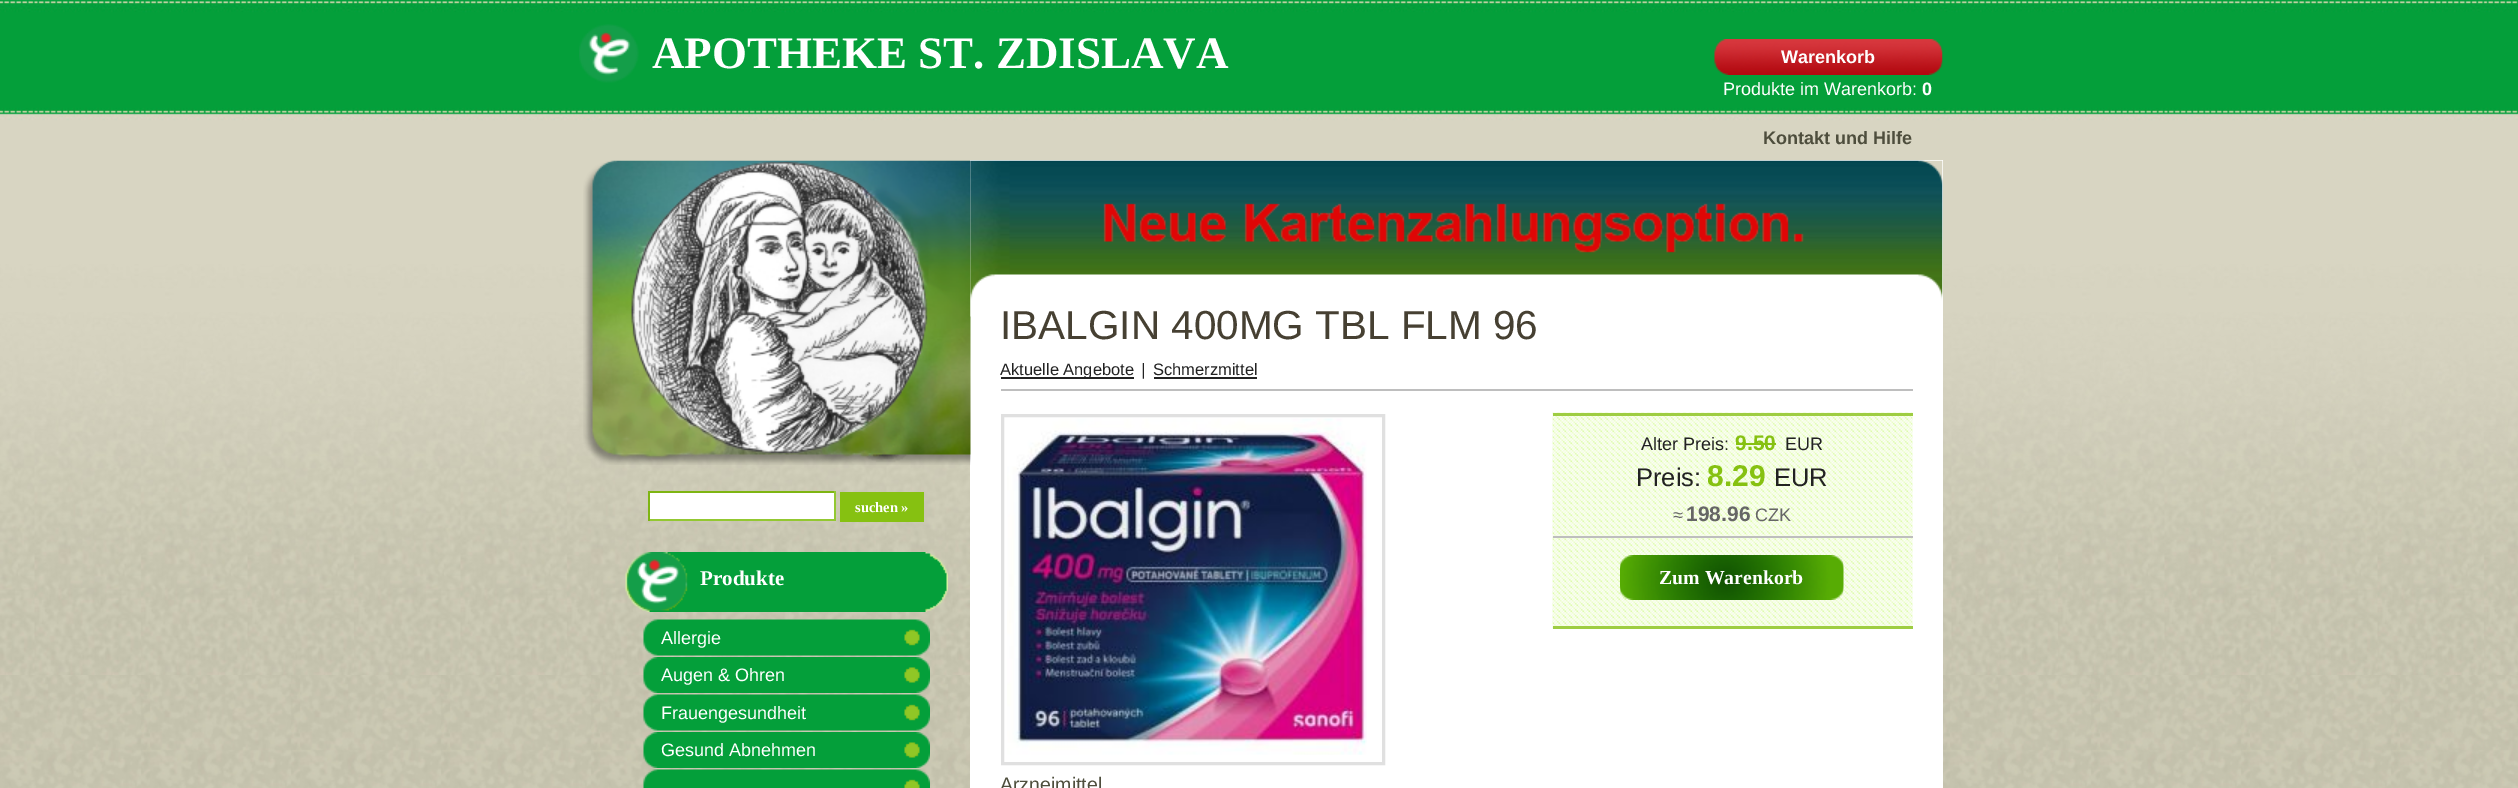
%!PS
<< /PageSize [2518 788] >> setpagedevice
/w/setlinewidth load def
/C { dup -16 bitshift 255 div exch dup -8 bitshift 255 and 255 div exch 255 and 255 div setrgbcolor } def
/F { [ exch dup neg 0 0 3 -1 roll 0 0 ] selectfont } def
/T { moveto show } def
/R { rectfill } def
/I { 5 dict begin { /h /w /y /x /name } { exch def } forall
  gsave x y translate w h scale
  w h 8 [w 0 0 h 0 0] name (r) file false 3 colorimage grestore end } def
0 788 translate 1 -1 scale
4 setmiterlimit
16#FFFFFF C
0 0 2518 788 R
(1.rgb) 0 675 2518 113 I
(2.rgb) 0 0 2518 675 I
/LiberationSerif-Bold 45 F
(APOTHEKE ST. ZDISLAVA) 652 68 T
(3.rgb) 579 24 60 59 I
(4.rgb) 1926 39 17 36 I
(5.rgb) 1714 39 212 36 I
/LiberationSans-Bold 18 F
(Warenkorb) 1781 63 T
/LiberationSans-Regular 18 F
(Produkte im Warenkorb:) 1723 95 T
/LiberationSans-Bold 18 F
(0) 1922 95 T
16#4E4E3D C
(Kontakt und Hilfe) 1763 144 T
16#FFFFFF C
970 160 973 628 R
(6.rgb) 583 160 388 305 I
650 493 184 26 R
16#7EB512 C
648 491 188 2 R
16#93C831 C
834 491 2 30 R
648 519 188 2 R
16#7EB512 C
648 491 2 30 R
16#86C111 C
840 492 84 30 R
/LiberationSerif-Bold 14.5 F
16#FFFFFF C
(suchen ») 855 512 T
(7.rgb) 625 552 323 60 I
/LiberationSerif-Bold 21 F
(Produkte) 700 585 T
(8.rgb) 643 619 287 37 I
/LiberationSans-Regular 18 F
(Allergie) 661 644 T
(9.rgb) 643 657 287 36 I
(Augen & Ohren) 661 681 T
(10.rgb) 643 694 287 37 I
(Frauengesundheit) 661 719 T
(11.rgb) 643 732 287 36 I
(Gesund Abnehmen) 661 756 T
(12.rgb) 643 769 287 19 I
(13.rgb) 970 160 973 157 I
/LiberationSans-Regular 40.5 F
16#464032 C
(IBALGIN 400MG TBL FLM 96) 1000 339 T
16#BEBEBE C
1001 389 912 2 R
16#222222 C
1001 377 133 2 R
/LiberationSans-Regular 16.5 F
(Aktuelle Angebote) 1000 375 T
/LiberationSans-Italic 16.5 F
(|) 1141 375 T
/LiberationSans-Regular 16.5 F
(Schmerzmittel) 1153 375 T
1154 377 103 2 R
16#E0E0E0 C
3 w
1002.5 415.5 381 348 rectstroke
(14.rgb) 1007 418 360 337 I
(15.rgb) 1552 412 361 217 I
16#9ECD42 C
1553 413 360 3 R
1553 626 360 3 R
16#BEBEBE C
1553 536 360 2 R
/LiberationSans-Regular 18 F
16#222222 C
(Alter Preis:) 1641 450 T
/LiberationSans-Bold 21 F
16#86C111 C
(9.50) 1735 450 T
1736 443 40 2 R
/LiberationSans-Regular 18 F
16#222222 C
(EUR) 1785 450 T
/LiberationSans-Regular 25.5 F
(Preis:) 1636 486 T
/LiberationSans-Bold 30 F
16#86C111 C
(8.29) 1707 486 T
/LiberationSans-Regular 25.5 F
16#222222 C
(EUR) 1774 486 T
/LiberationSans-Regular 18 F
16#666666 C
(≈) 1673 521 T
/LiberationSans-Bold 21 F
(198.96) 1686 521 T
/LiberationSans-Regular 18 F
(CZK) 1755 521 T
(16.rgb) 1620 555 224 45 I
/LiberationSerif-Bold 19.75 F
16#FFFFFF C
(Zum Warenkorb) 1659 584 T
/LiberationSans-Regular 19.5 F
16#4E4E3D C
(Arzneimittel) 1000 791 T
showpage
